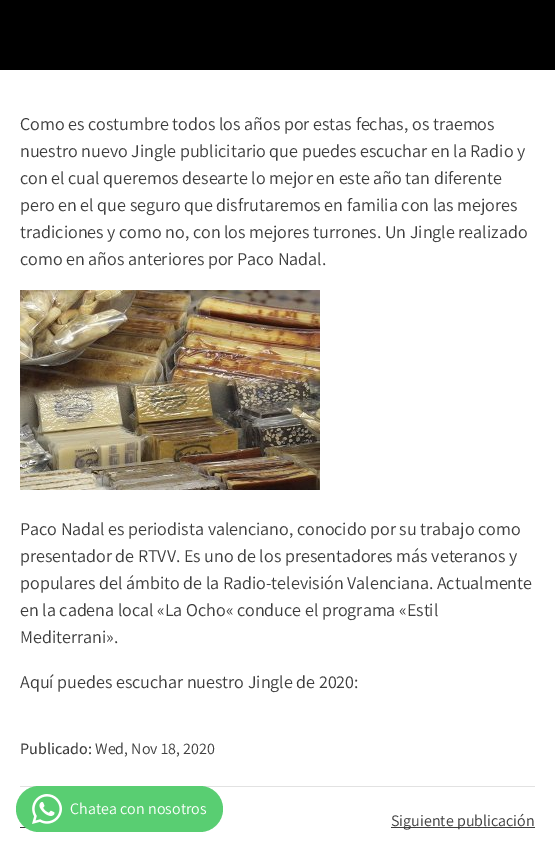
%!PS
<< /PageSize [555 848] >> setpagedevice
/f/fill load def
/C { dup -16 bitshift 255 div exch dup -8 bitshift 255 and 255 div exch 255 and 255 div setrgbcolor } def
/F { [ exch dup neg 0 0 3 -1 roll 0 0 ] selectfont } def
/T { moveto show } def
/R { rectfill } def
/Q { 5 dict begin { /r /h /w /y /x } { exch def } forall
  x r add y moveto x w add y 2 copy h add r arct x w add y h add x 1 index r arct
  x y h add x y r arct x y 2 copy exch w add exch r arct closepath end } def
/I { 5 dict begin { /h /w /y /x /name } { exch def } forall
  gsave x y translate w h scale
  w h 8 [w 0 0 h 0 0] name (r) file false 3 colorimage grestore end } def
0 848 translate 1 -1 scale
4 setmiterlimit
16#FFFFFF C
0 0 555 848 R
16#000000 C
0 0 555 70 R
/Assistant-Regular 18 F
16#3D3D3D C
(Como es costumbre todos los años por estas fechas, os traemos) 20 130 T
(nuestro nuevo Jingle publicitario que puedes escuchar en la Radio y) 20 157 T
(con el cual queremos desearte lo mejor en este año tan diferente) 20 184 T
(pero en el que seguro que disfrutaremos en familia con las mejores) 20 211 T
(tradiciones y como no, con los mejores turrones. Un Jingle realizado) 20 238 T
(como en años anteriores por Paco Nadal.) 20 265 T
(1.rgb) 20 290 300 200 I
(Paco Nadal es periodista valenciano, conocido por su trabajo como) 20 535 T
(presentador de RTVV. Es uno de los presentadores más veteranos y) 20 562 T
(populares del ámbito de la Radio-televisión Valenciana. Actualmente) 20 589 T
(en la cadena local «La Ocho« conduce el programa «Estil) 20 616 T
(Mediterrani».) 20 643 T
(Aquí puedes escuchar nuestro Jingle de 2020:) 20 688 T
16#E2E2E2 C
20 786 515 1 R
/Assistant-Medium 16 F
16#3D3D3D C
(Publicado:) 20 754 T
/Assistant-Regular 16 F
(Wed, Nov 18, 2020) 95 754 T
20 827 6 1 R
391 827 144 1 R
(Siguiente publicación) 391 826 T
16#59CE72 C
16 786 207 46 23 Q f
(2.rgb) 32 794 30 30 I
16#FFFFFF C
(Chatea con nosotros) 70 814 T
showpage
